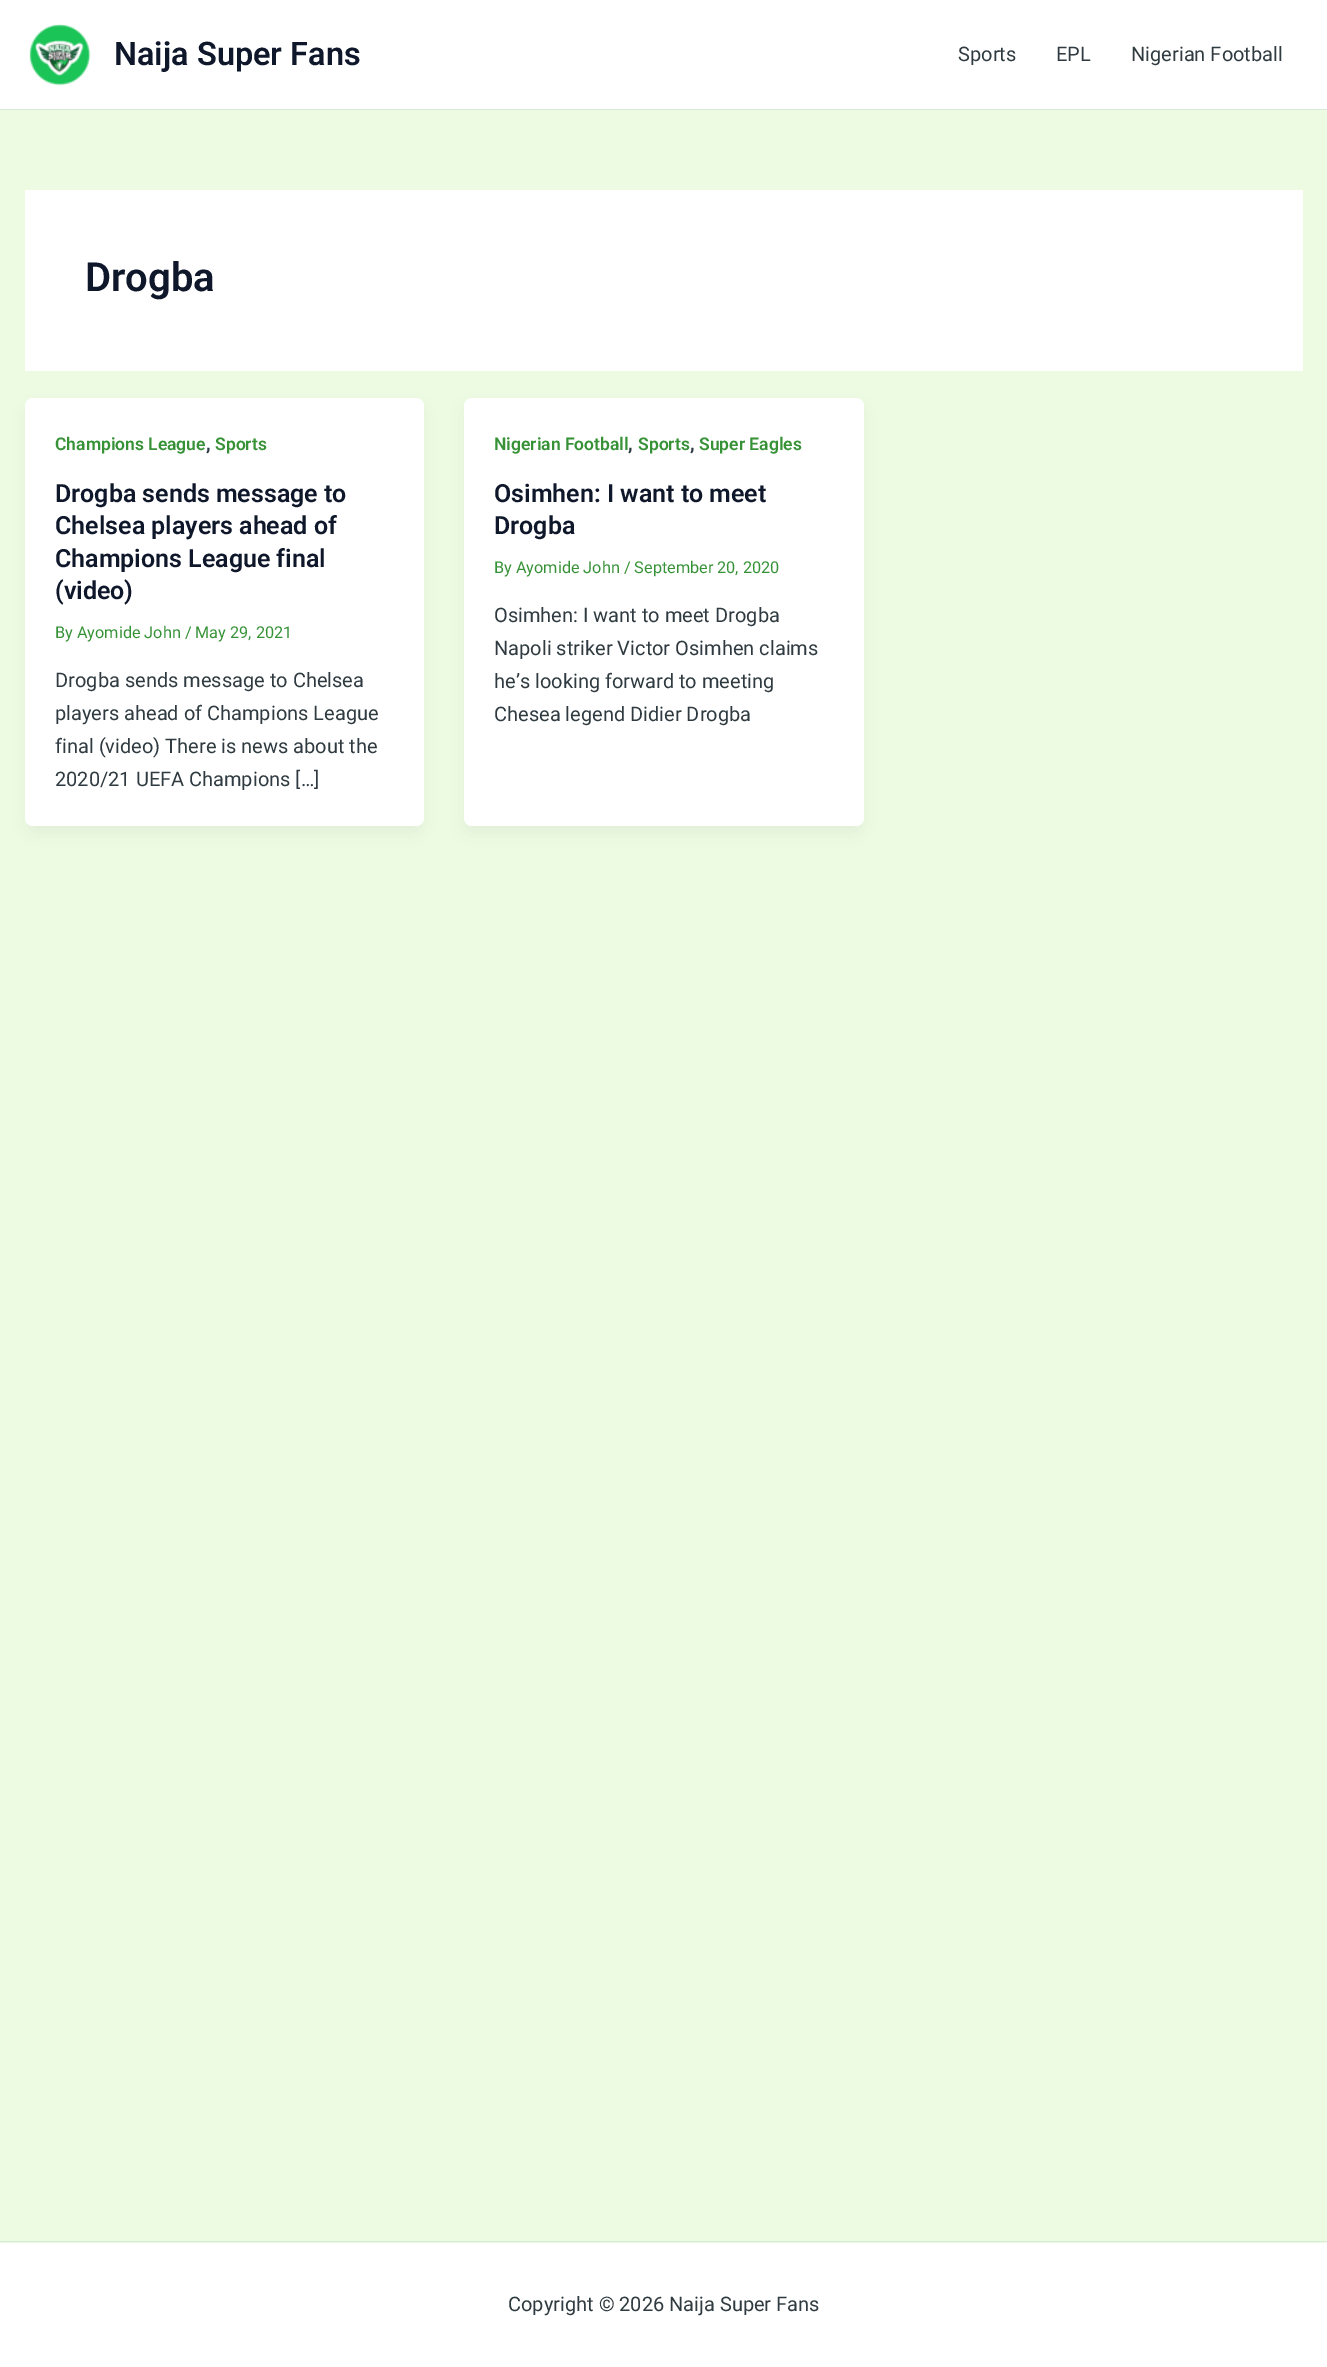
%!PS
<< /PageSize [1327 2367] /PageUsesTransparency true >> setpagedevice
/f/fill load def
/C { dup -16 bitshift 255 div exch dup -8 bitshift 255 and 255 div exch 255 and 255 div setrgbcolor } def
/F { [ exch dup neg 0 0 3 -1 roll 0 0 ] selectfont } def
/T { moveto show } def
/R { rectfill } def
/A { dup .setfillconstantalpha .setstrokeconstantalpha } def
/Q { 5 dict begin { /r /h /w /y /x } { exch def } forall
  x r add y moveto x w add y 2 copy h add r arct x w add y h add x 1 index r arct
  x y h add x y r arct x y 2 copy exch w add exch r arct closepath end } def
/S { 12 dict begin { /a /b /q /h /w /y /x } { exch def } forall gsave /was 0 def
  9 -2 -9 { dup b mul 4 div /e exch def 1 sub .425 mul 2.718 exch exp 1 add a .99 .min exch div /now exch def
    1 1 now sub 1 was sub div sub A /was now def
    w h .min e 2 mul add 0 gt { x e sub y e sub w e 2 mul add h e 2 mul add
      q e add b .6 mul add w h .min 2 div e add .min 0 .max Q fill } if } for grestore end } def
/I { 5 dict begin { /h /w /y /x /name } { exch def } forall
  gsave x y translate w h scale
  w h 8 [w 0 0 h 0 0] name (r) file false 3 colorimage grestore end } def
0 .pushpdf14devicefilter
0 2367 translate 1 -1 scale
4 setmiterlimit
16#EDFBE2 C
0 0 1327 2367 R
16#FFFFFF C
0 0 1327 109 R
16#D5EAD8 C
0 109 1327 1 R
(1.rgb) 29 24 62 62 I
/Roboto-SemiBold 32.5 F
16#0F172A C
(Naija Super Fans) 114 65 T
/Roboto-Regular 20 F
16#2F3B40 C
(Sports) 958 61 T
(EPL) 1056 61 T
(Nigerian Football) 1131 61 T
16#FFFFFF C
25 190 1278 181 R
/Roboto-SemiBold 40 F
16#0F172A C
(Drogba) 85 291 T
16#101828 C
28 408 393 423 5 9.5 .05 S
16#FFFFFF C
25 398 399 428 8 Q f
/Roboto-SemiBold 17.5 F
16#379237 C
(Champions League) 55 450 T
/Roboto-SemiBold 20 F
16#2F3B40 C
(,) 206 450 T
/Roboto-SemiBold 17.5 F
16#379237 C
(Sports) 215 450 T
/Roboto-SemiBold 25 F
16#0F172A C
(Drogba sends message to) 55 502 T
(Chelsea players ahead of) 55 534 T
(Champions League final) 55 567 T
(\(video\)) 55 599 T
/Roboto-Regular 16.25 F
16#379237 C
(By Ayomide John / May 29, 2021) 55 638 T
/Roboto-Regular 20 F
16#2F3B40 C
(Drogba sends message to Chelsea) 55 687 T
(players ahead of Champions League) 55 720 T
(final \(video\) There is news about the) 55 753 T
(2020/21 UEFA Champions […]) 55 786 T
16#101828 C
466 408 395 423 5 9.5 .05 S
16#FFFFFF C
464 398 400 428 8 Q f
/Roboto-SemiBold 17.5 F
16#379237 C
(Nigerian Football) 494 450 T
/Roboto-SemiBold 20 F
16#2F3B40 C
(,) 628 450 T
/Roboto-SemiBold 17.5 F
16#379237 C
(Sports) 638 450 T
/Roboto-SemiBold 20 F
16#2F3B40 C
(,) 690 450 T
/Roboto-SemiBold 17.5 F
16#379237 C
(Super Eagles) 699 450 T
/Roboto-SemiBold 25 F
16#0F172A C
(Osimhen: I want to meet) 494 502 T
(Drogba) 494 534 T
/Roboto-Regular 16.25 F
16#379237 C
(By Ayomide John / September 20, 2020) 494 573 T
/Roboto-Regular 20 F
16#2F3B40 C
(Osimhen: I want to meet Drogba) 494 622 T
(Napoli striker Victor Osimhen claims) 494 655 T
(he’s looking forward to meeting) 494 688 T
(Chesea legend Didier Drogba) 494 721 T
16#FFFFFF C
0 2243 1327 124 R
16#D5EAD8 C
0 2241 1327 1 R
16#2F3B40 C
(Copyright © 2026 Naija Super Fans) 508 2311 T
.poppdf14devicefilter showpage
